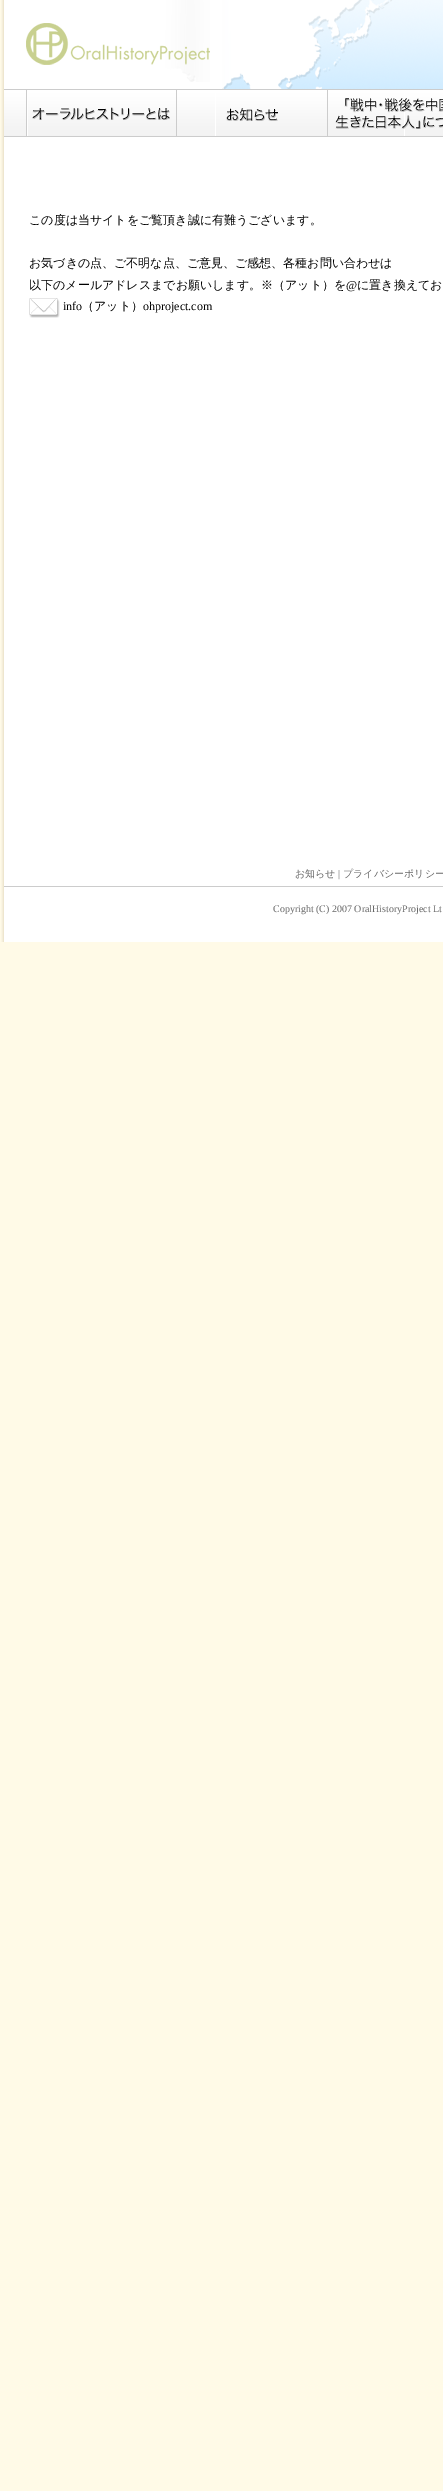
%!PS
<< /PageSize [443 2491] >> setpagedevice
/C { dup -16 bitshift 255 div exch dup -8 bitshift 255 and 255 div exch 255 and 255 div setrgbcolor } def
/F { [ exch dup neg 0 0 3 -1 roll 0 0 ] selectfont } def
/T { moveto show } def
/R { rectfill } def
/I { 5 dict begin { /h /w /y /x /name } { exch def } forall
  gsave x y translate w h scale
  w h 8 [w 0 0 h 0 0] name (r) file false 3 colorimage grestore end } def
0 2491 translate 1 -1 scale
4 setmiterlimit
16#FFFAE7 C
0 0 443 2491 R
(1.rgb) 1 0 442 942 I
(2.rgb) 26 0 184 82 I
(3.rgb) 222 0 221 89 I
(4.rgb) 4 89 22 48 I
(5.rgb) 26 89 151 48 I
(6.rgb) 177 89 151 48 I
(7.rgb) 328 89 115 48 I
/WenQuanYiZenHei-Medium 12 F
16#000000 C
(この度は当サイトをご覧頂き誠に有難うございます。) 29 224 T
(お気づきの点、ご不明な点、ご意見、ご感想、各種お問い合わせは) 29 267 T
(以下のメールアドレスまでお願いします。※（アット）を) 29 289 T
/LiberationSerif-Regular 12 F
(@) 346 289 T
/WenQuanYiZenHei-Medium 12 F
(に置き換えてお) 357 289 T
(8.rgb) 29 298 31 20 I
/LiberationSerif-Regular 12 F
(info) 63 310 T
/WenQuanYiZenHei-Medium 12 F
(（アット）) 82 310 T
/LiberationSerif-Regular 12 F
(ohproject.com) 143 310 T
/WenQuanYiZenHei-Medium 10 F
16#666666 C
(お知らせ) 295 877 T
/LiberationSerif-Regular 10 F
(|) 338 877 T
16#CCCCCC C
4 886 439 1 R
/WenQuanYiZenHei-Medium 10 F
16#666666 C
(プライバシーポリシー) 343 877 T
/LiberationSerif-Regular 10 F
(Copyright \(C\) 2007 OralHistoryProject Lt) 273 912 T
showpage
